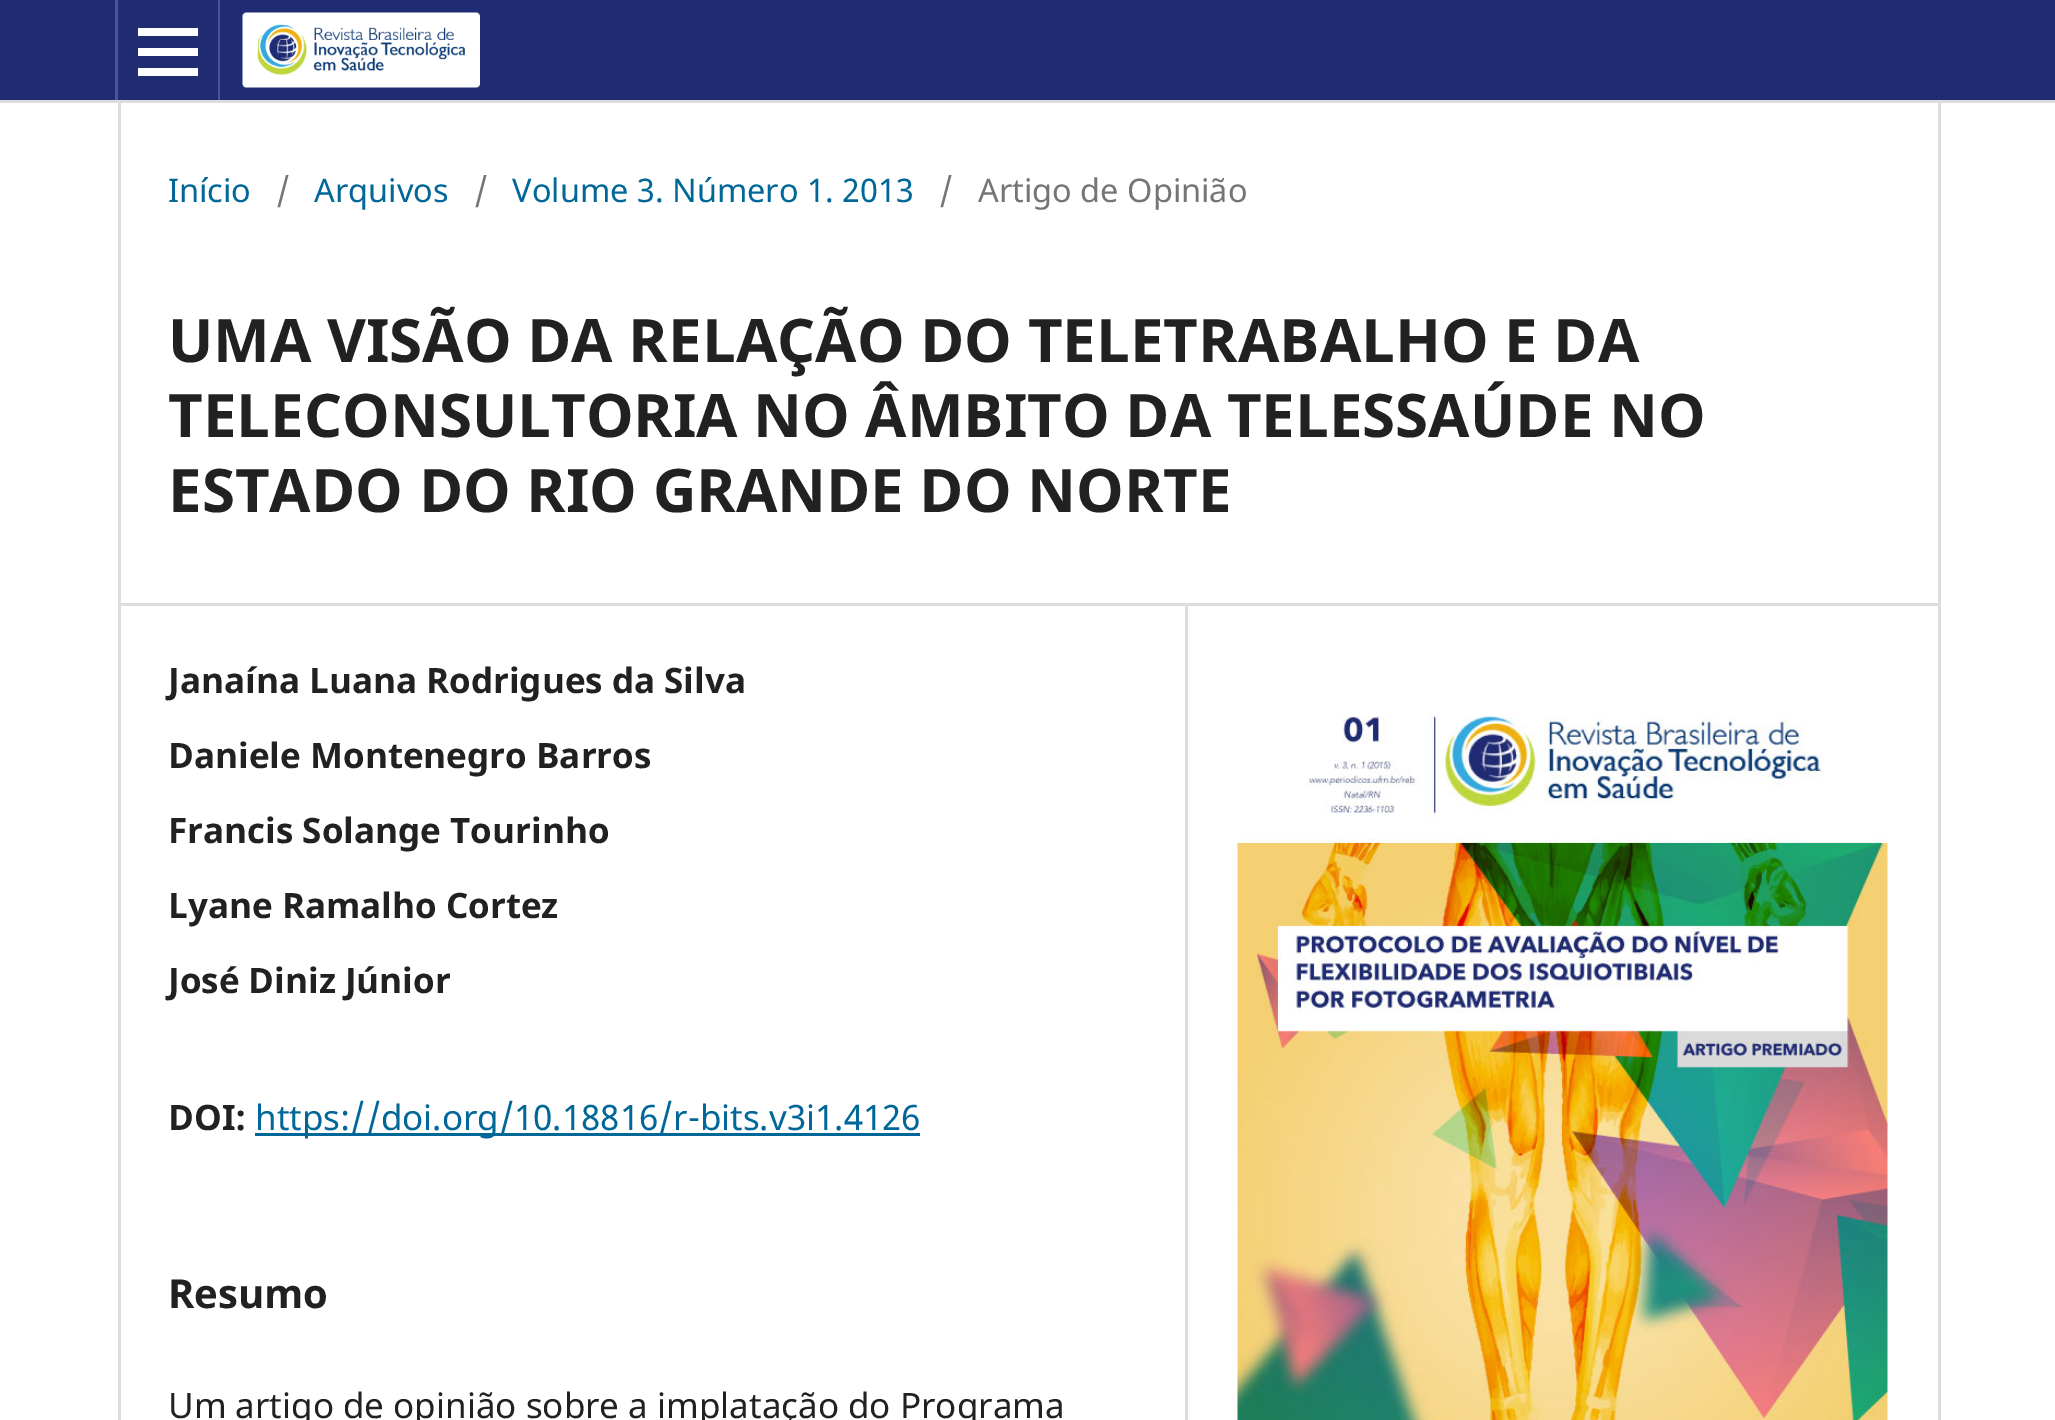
%!PS
<< /PageSize [2055 1420] >> setpagedevice
/C { dup -16 bitshift 255 div exch dup -8 bitshift 255 and 255 div exch 255 and 255 div setrgbcolor } def
/F { [ exch dup neg 0 0 3 -1 roll 0 0 ] selectfont } def
/T { moveto show } def
/R { rectfill } def
/I { 5 dict begin { /h /w /y /x /name } { exch def } forall
  gsave x y translate w h scale
  w h 8 [w 0 0 h 0 0] name (r) file false 3 colorimage grestore end } def
0 1420 translate 1 -1 scale
4 setmiterlimit
16#FFFFFF C
0 0 2055 1420 R
16#1F2B72 C
0 0 2055 100 R
16#DDDDDD C
0 100 2055 3 R
16#4C558E C
115 0 3 100 R
218 0 2 100 R
16#FFFFFF C
138 68 60 8 R
138 28 60 8 R
138 48 60 8 R
(1.rgb) 242 12 238 76 I
16#DDDDDD C
118 603 1820 3 R
118 103 3 1317 R
/NotoSans-Regular 32.5 F
16#006798 C
(Início) 168 202 T
16#757575 C
(/) 276 202 T
16#006798 C
(Arquivos) 314 202 T
16#757575 C
(/) 474 202 T
16#006798 C
(Volume 3. Número 1. 2013) 512 202 T
16#757575 C
(/) 939 202 T
(Artigo de Opinião) 978 202 T
/NotoSans-Bold 60 F
16#212121 C
(UMA VISÃO DA RELAÇÃO DO TELETRABALHO E DA) 168 362 T
(TELECONSULTORIA NO ÂMBITO DA TELESSAÚDE NO) 168 437 T
(ESTADO DO RIO GRANDE DO NORTE) 168 512 T
16#DDDDDD C
1185 605 3 815 R
/NotoSans-Bold 35 F
16#212121 C
(Janaína Luana Rodrigues da Silva) 168 693 T
(Daniele Montenegro Barros) 168 768 T
(Francis Solange Tourinho) 168 843 T
(Lyane Ramalho Cortez) 168 918 T
(José Diniz Júnior) 168 993 T
(DOI:) 168 1130 T
16#006798 C
255 1133 665 3 R
/NotoSans-Regular 35 F
(https://doi.org/10.18816/r-bits.v3i1.4126) 255 1130 T
/NotoSans-Bold 40 F
16#212121 C
(Resumo) 168 1308 T
/NotoSans-Regular 35 F
(Um artigo de opinião sobre a implatação do Programa) 168 1418 T
(2.rgb) 1237 716 651 704 I
16#DDDDDD C
1938 103 3 1317 R
showpage
